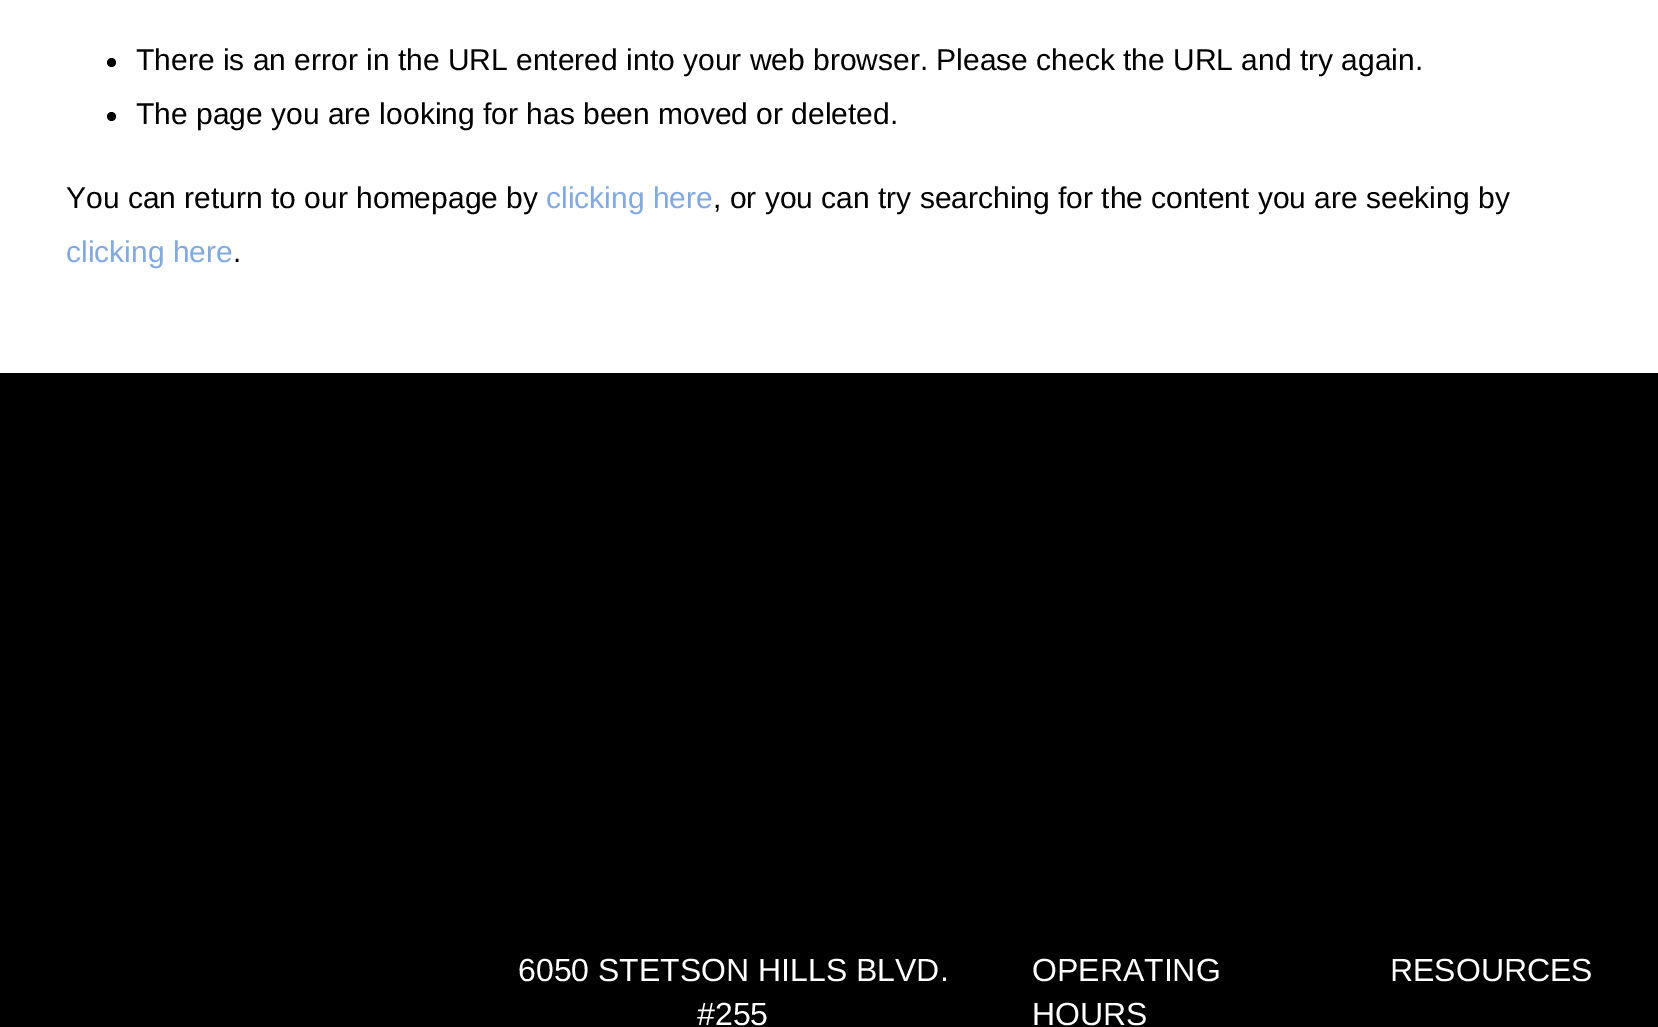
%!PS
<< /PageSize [1658 1027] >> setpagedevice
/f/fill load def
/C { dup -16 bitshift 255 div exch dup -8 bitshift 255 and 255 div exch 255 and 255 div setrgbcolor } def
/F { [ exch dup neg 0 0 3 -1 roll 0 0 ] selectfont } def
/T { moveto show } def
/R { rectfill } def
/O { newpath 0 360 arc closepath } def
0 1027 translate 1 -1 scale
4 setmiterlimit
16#FFFFFF C
0 0 1658 1027 R
16#000000 C
111.5 62.5 4.5 O f
/LiberationSans-Regular 30 F
(There is an error in the URL entered into your web browser. Please check the URL and try again.) 136 70 T
111.5 116.5 4.5 O f
(The page you are looking for has been moved or deleted.) 136 124 T
(You can return to our homepage by) 66 208 T
16#83AADF C
(clicking here) 546 208 T
16#000000 C
(, or you can try searching for the) 713 208 T
(content you are seeking by) 1151 208 T
16#83AADF C
(clicking here) 66 262 T
16#000000 C
(.) 233 262 T
0 373 1658 654 R
/LiberationSans-Regular 32 F
16#FFFFFF C
(6050 STETSON HILLS BLVD.) 518 981 T
(#255) 697 1025 T
(OPERATING) 1032 981 T
(HOURS) 1032 1025 T
(RESOURCES) 1390 981 T
showpage
